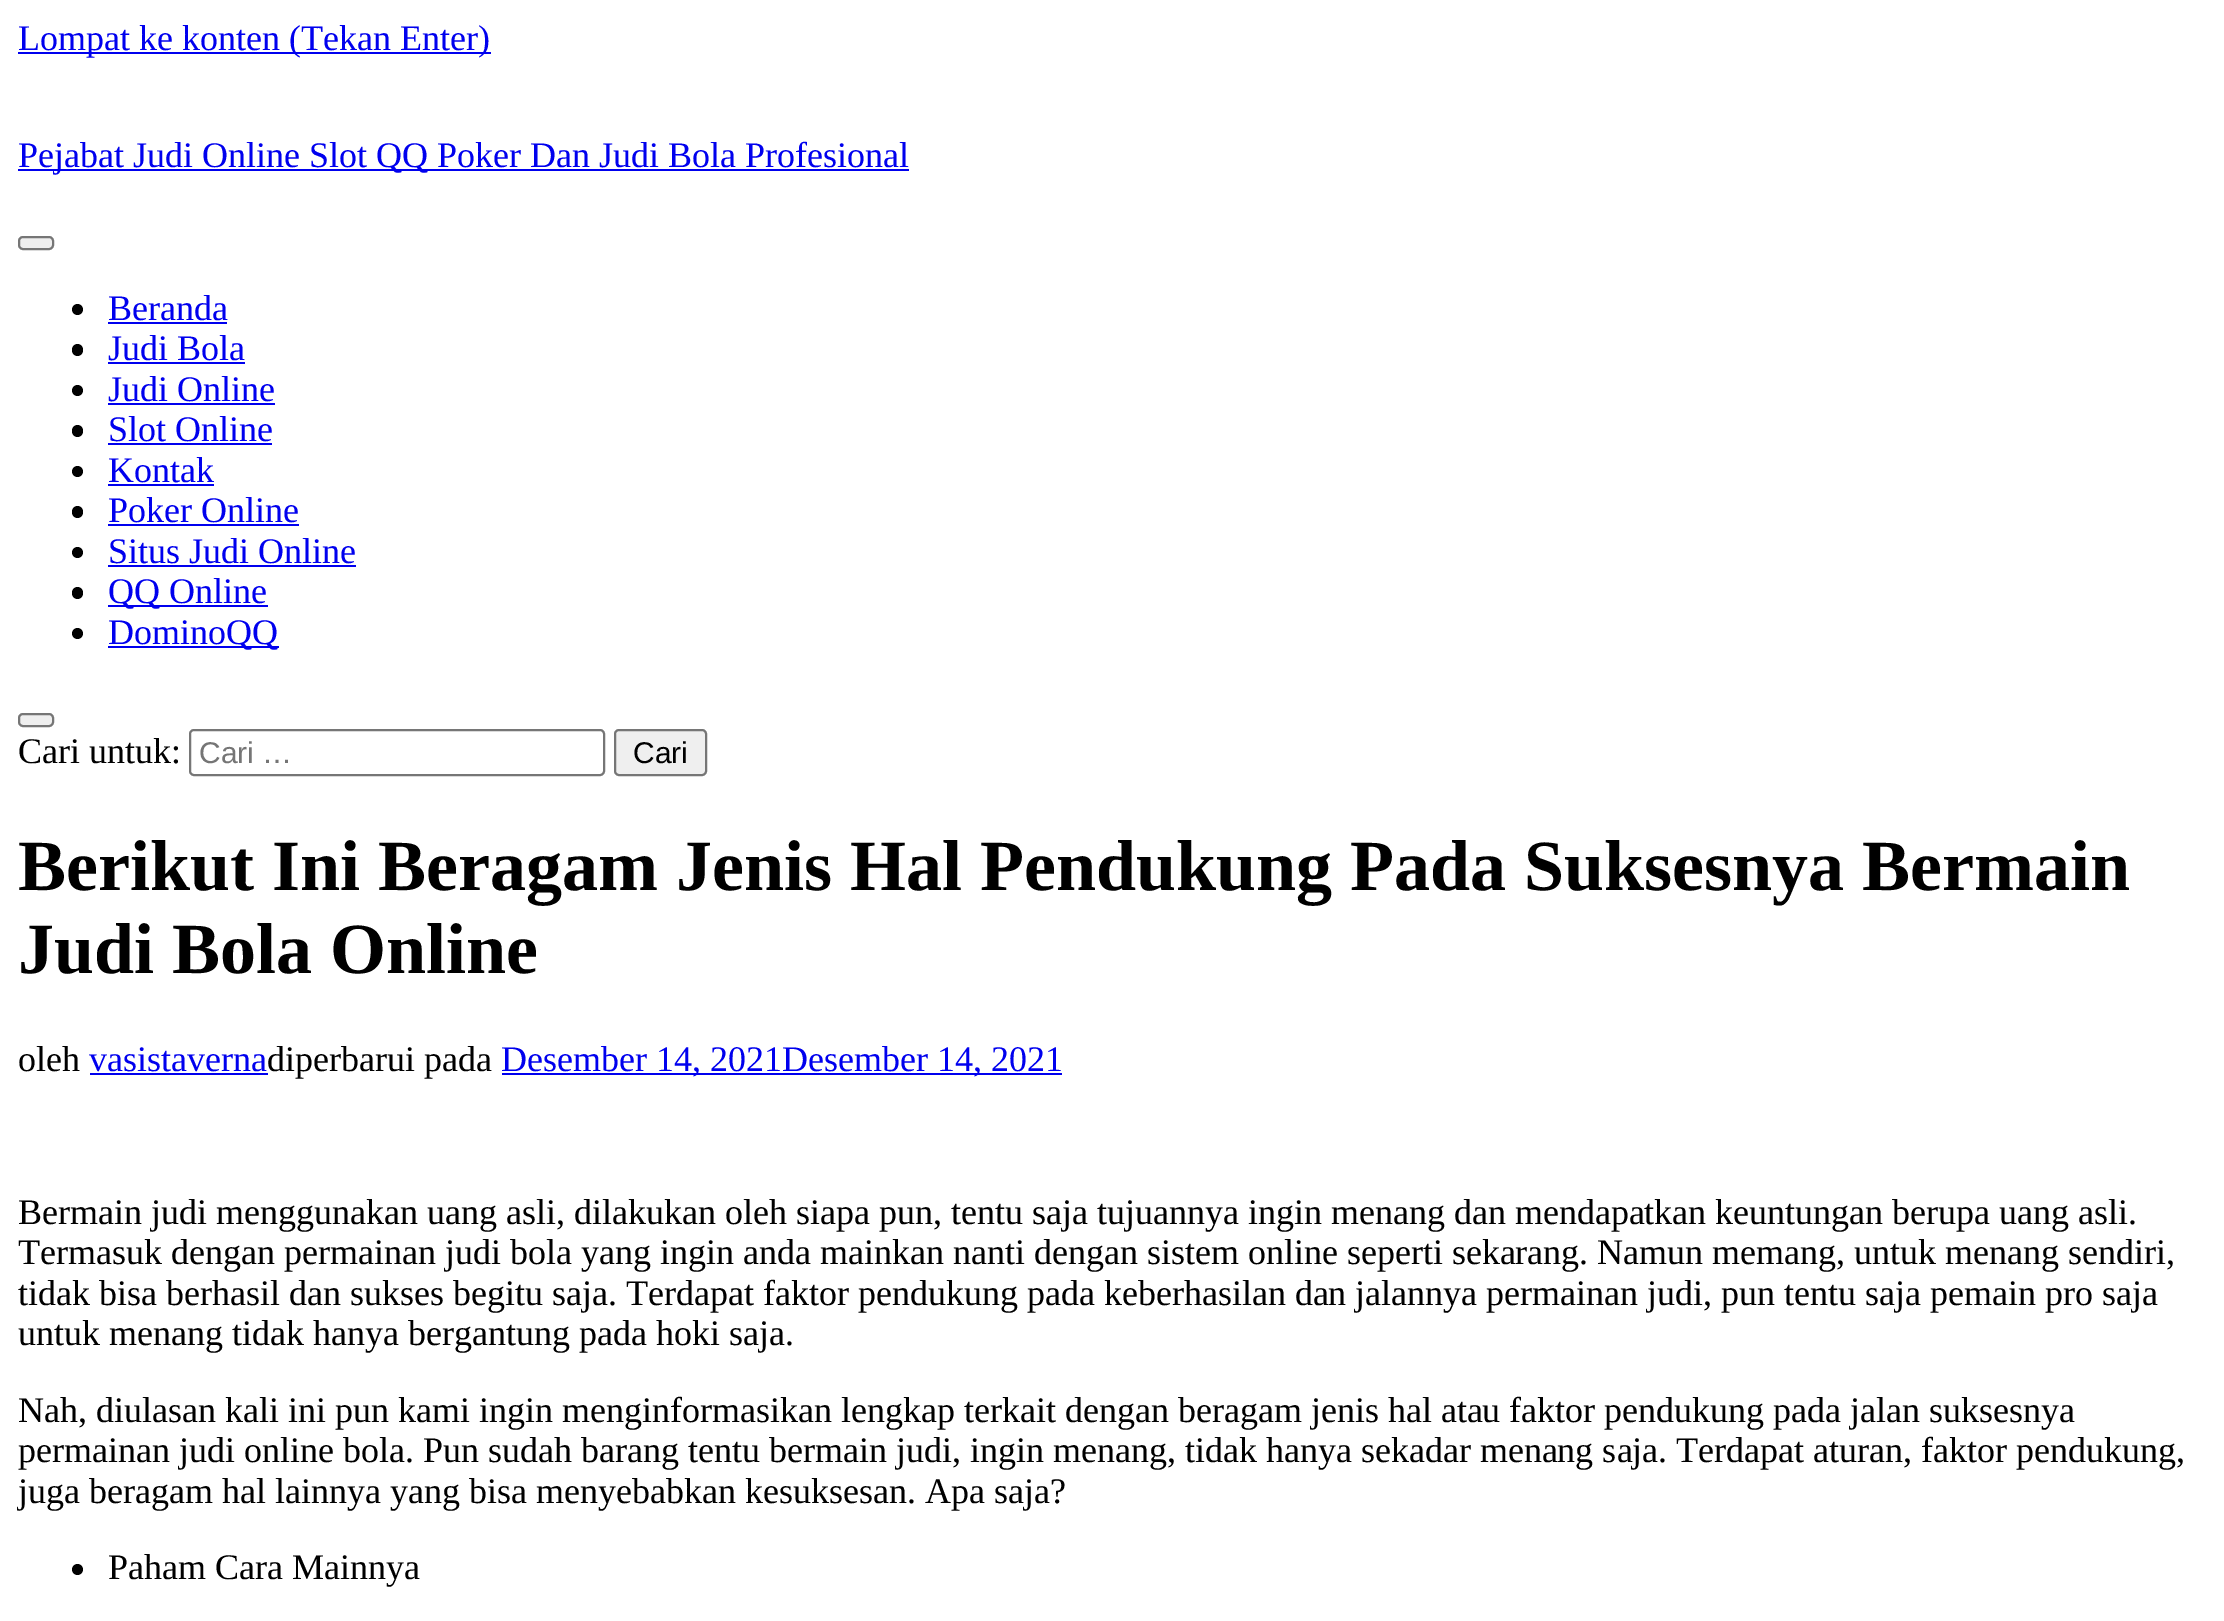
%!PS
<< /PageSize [2224 1621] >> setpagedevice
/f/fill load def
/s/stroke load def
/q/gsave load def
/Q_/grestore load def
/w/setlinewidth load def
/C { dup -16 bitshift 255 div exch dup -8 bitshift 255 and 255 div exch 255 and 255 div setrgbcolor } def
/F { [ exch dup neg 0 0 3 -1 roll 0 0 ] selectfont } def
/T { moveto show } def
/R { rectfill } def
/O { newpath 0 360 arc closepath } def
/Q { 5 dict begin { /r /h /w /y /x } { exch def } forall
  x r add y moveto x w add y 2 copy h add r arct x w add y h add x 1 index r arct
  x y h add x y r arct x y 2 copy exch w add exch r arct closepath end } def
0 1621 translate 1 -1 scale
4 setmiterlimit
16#FFFFFF C
0 0 2224 1621 R
16#0000EE C
18 52 473 2 R
/LiberationSerif-Regular 36 F
(Lompat ke konten \(Tekan Enter\)) 18 50 T
18 169 891 2 R
(Pejabat Judi Online Slot QQ Poker Dan Judi Bola Profesional) 18 167 T
16#EFEFEF C
19 237 34 12 4 Q q f Q_
16#767676 C
2 w
s
16#000000 C
77.5 309.5 5.5 O f
16#0000EE C
(Beranda) 108 320 T
108 322 119 2 R
16#000000 C
72 344 11 12 5.5 Q f
16#0000EE C
(Judi Bola) 108 360 T
108 362 137 2 R
16#000000 C
77.5 390.5 5.5 O f
16#0000EE C
(Judi Online) 108 401 T
108 403 167 2 R
16#000000 C
72 425 11 12 5.5 Q f
16#0000EE C
(Slot Online) 108 441 T
108 443 164 2 R
16#000000 C
77.5 471.5 5.5 O f
16#0000EE C
(Kontak) 108 482 T
108 484 106 2 R
16#000000 C
72 506 11 12 5.5 Q f
16#0000EE C
(Poker Online) 108 522 T
108 524 191 2 R
16#000000 C
77.5 552.5 5.5 O f
16#0000EE C
(Situs Judi Online) 108 563 T
108 565 248 2 R
16#000000 C
72 587 11 12 5.5 Q f
16#0000EE C
108 605 160 2 R
(QQ Online) 108 603 T
16#000000 C
77.5 633.5 5.5 O f
16#0000EE C
108 646 171 2 R
(DominoQQ) 108 644 T
16#EFEFEF C
19 714 34 12 4 Q q f Q_
16#767676 C
s
16#000000 C
(Cari untuk:) 18 763 T
16#767676 C
190 730 414 45 4 Q s
/LiberationSans-Regular 30 F
16#757575 C
(Cari …) 199 763 T
16#EFEFEF C
615 730 91 45 4 Q q f Q_
16#767676 C
s
16#000000 C
(Cari) 633 763 T
/LiberationSerif-Bold 72 F
(Berikut Ini Beragam Jenis Hal Pendukung Pada Suksesnya Bermain) 18 890 T
(Judi Bola Online) 18 973 T
/LiberationSerif-Regular 36 F
(oleh) 18 1071 T
16#0000EE C
(vasistaverna) 89 1071 T
90 1073 178 2 R
16#000000 C
(diperbarui pada) 267 1071 T
16#0000EE C
502 1073 560 2 R
(Desember 14, 2021Desember 14, 2021) 501 1071 T
16#000000 C
(Bermain judi menggunakan uang asli, dilakukan oleh siapa pun, tentu saja tujuannya ingin menang dan mendapatkan keuntungan berupa uang asli.) 18 1224 T
(Termasuk dengan permainan judi bola yang ingin anda mainkan nanti dengan sistem online seperti sekarang. Namun memang, untuk menang sendiri,) 18 1264 T
(tidak bisa berhasil dan sukses begitu saja. Terdapat faktor pendukung pada keberhasilan dan jalannya permainan judi, pun tentu saja pemain pro saja) 18 1305 T
(untuk menang tidak hanya bergantung pada hoki saja.) 18 1345 T
(Nah, diulasan kali ini pun kami ingin menginformasikan lengkap terkait dengan beragam jenis hal atau faktor pendukung pada jalan suksesnya) 18 1422 T
(permainan judi online bola. Pun sudah barang tentu bermain judi, ingin menang, tidak hanya sekadar menang saja. Terdapat aturan, faktor pendukung,) 18 1462 T
(juga beragam hal lainnya yang bisa menyebabkan kesuksesan. Apa saja?) 18 1503 T
77.5 1569.5 5.5 O f
(Paham Cara Mainnya) 108 1579 T
showpage
